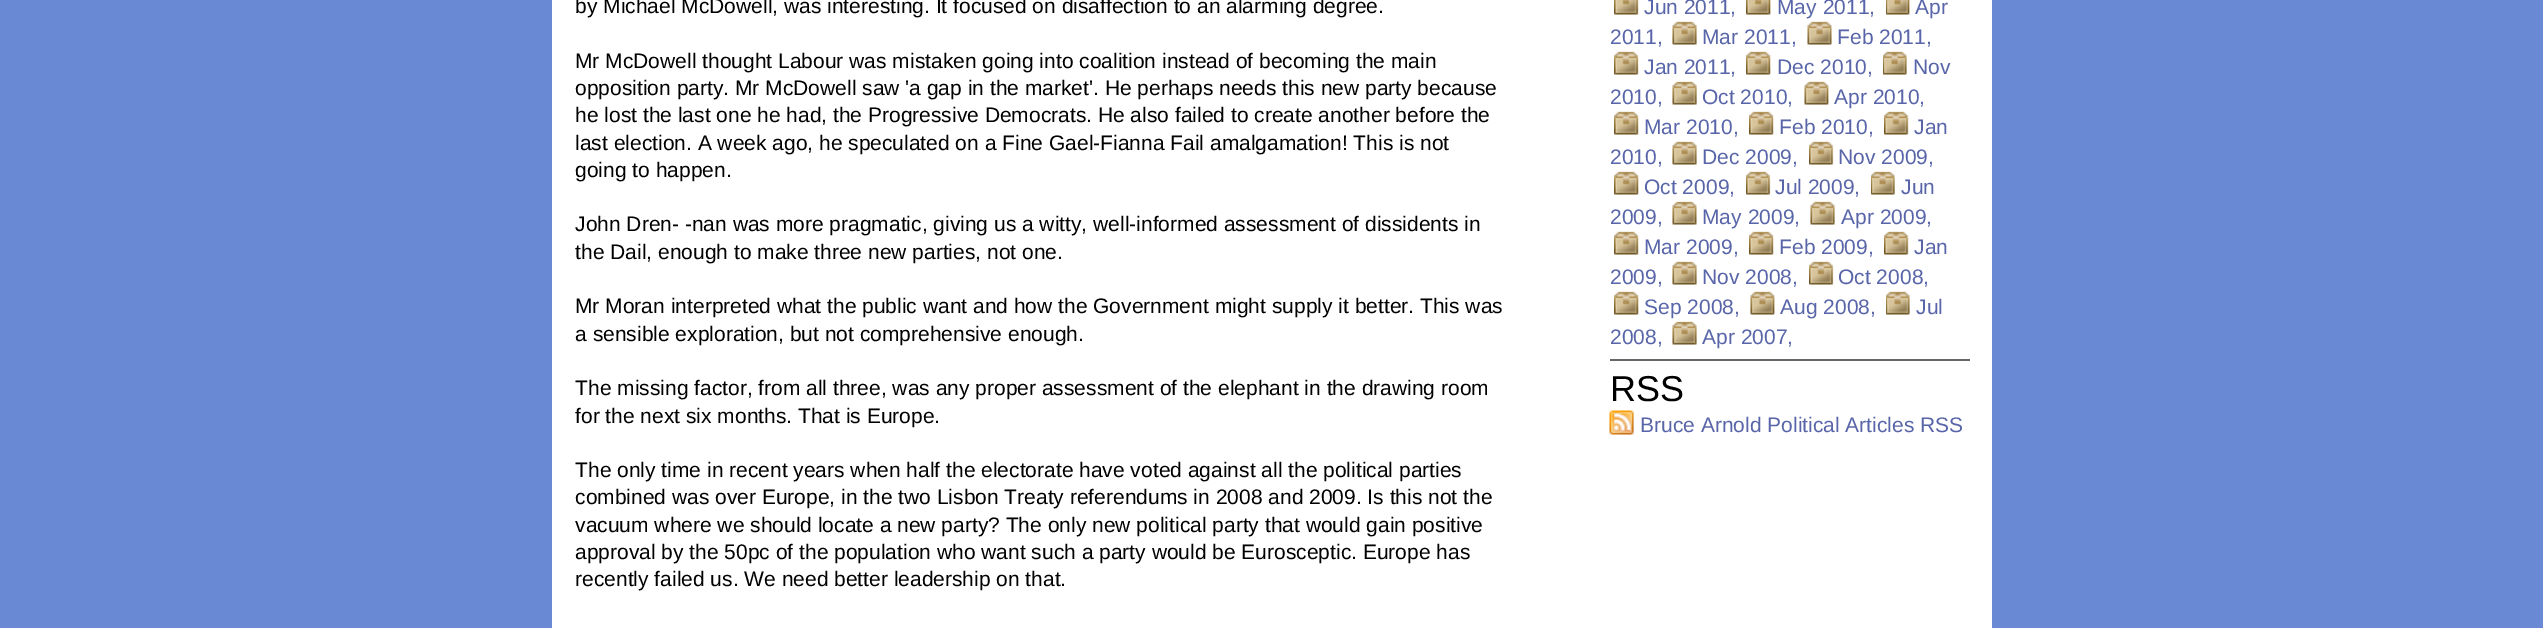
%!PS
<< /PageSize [2543 628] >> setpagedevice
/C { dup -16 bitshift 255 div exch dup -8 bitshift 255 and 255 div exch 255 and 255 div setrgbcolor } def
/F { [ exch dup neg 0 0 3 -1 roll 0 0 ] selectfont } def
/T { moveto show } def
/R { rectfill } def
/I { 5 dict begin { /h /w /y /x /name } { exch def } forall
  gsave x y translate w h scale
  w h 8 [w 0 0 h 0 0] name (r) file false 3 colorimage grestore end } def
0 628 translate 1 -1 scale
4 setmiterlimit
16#6989D5 C
0 0 2543 628 R
16#FFFFFF C
552 0 1440 628 R
/LiberationSans-Regular 21 F
16#000000 C
(by Michael McDowell, was interesting. It focused on disaffection to an alarming degree.) 575 13 T
(Mr McDowell thought Labour was mistaken going into coalition instead of becoming the main) 575 68 T
(opposition party. Mr McDowell saw 'a gap in the market'. He perhaps needs this new party because) 575 95 T
(he lost the last one he had, the Progressive Democrats. He also failed to create another before the) 575 122 T
(last election. A week ago, he speculated on a Fine Gael-Fianna Fail amalgamation! This is not) 575 150 T
(going to happen.) 575 177 T
(John Dren- -nan was more pragmatic, giving us a witty, well-informed assessment of dissidents in) 575 231 T
(the Dail, enough to make three new parties, not one.) 575 259 T
(Mr Moran interpreted what the public want and how the Government might supply it better. This was) 575 313 T
(a sensible exploration, but not comprehensive enough.) 575 341 T
(The missing factor, from all three, was any proper assessment of the elephant in the drawing room) 575 395 T
(for the next six months. That is Europe.) 575 423 T
(The only time in recent years when half the electorate have voted against all the political parties) 575 477 T
(combined was over Europe, in the two Lisbon Treaty referendums in 2008 and 2009. Is this not the) 575 504 T
(vacuum where we should locate a new party? The only new political party that would gain positive) 575 532 T
(approval by the 50pc of the population who want such a party would be Eurosceptic. Europe has) 575 559 T
(recently failed us. We need better leadership on that.) 575 586 T
(1.rgb) 1614 0 25 15 I
16#5965A9 C
(Jun 2011,) 1644 14 T
(2.rgb) 1746 0 25 15 I
(May 2011,) 1777 14 T
(3.rgb) 1886 0 24 15 I
(Apr) 1915 14 T
(2011,) 1610 44 T
(4.rgb) 1672 21 25 24 I
(Mar 2011,) 1702 44 T
(5.rgb) 1807 21 25 24 I
(Feb 2011,) 1837 44 T
(6.rgb) 1614 51 25 24 I
(Jan 2011,) 1644 74 T
(7.rgb) 1746 51 25 24 I
(Dec 2010,) 1777 74 T
(8.rgb) 1883 51 24 24 I
(Nov) 1913 74 T
(2010,) 1610 104 T
(9.rgb) 1672 81 25 24 I
(Oct 2010,) 1702 104 T
(10.rgb) 1804 81 25 24 I
(Apr 2010,) 1834 104 T
(11.rgb) 1614 111 25 24 I
(Mar 2010,) 1644 134 T
(11.rgb) 1749 111 25 24 I
(Feb 2010,) 1779 134 T
(12.rgb) 1884 111 25 24 I
(Jan) 1914 134 T
(2010,) 1610 164 T
(13.rgb) 1672 141 25 24 I
(Dec 2009,) 1702 164 T
(14.rgb) 1809 141 25 24 I
(Nov 2009,) 1838 164 T
(15.rgb) 1614 171 25 24 I
(Oct 2009,) 1644 194 T
(16.rgb) 1746 171 25 24 I
(Jul 2009,) 1775 194 T
(17.rgb) 1871 171 24 24 I
(Jun) 1901 194 T
(2009,) 1610 224 T
(18.rgb) 1672 201 25 24 I
(May 2009,) 1702 224 T
(19.rgb) 1810 201 25 24 I
(Apr 2009,) 1841 224 T
(11.rgb) 1614 231 25 24 I
(Mar 2009,) 1644 254 T
(11.rgb) 1749 231 25 24 I
(Feb 2009,) 1779 254 T
(12.rgb) 1884 231 25 24 I
(Jan) 1914 254 T
(2009,) 1610 284 T
(13.rgb) 1672 261 25 24 I
(Nov 2008,) 1702 284 T
(16.rgb) 1809 261 25 24 I
(Oct 2008,) 1838 284 T
(20.rgb) 1614 291 25 24 I
(Sep 2008,) 1644 314 T
(21.rgb) 1750 291 25 24 I
(Aug 2008,) 1780 314 T
(8.rgb) 1886 291 24 24 I
(Jul) 1916 314 T
(2008,) 1610 344 T
(19.rgb) 1672 321 25 24 I
(Apr 2007,) 1702 344 T
16#666666 C
1610 359 360 2 R
/LiberationSans-Regular 36 F
16#000000 C
(RSS) 1610 401 T
(22.rgb) 1609 410 25 25 I
/LiberationSans-Regular 21 F
16#5965A9 C
(Bruce Arnold Political Articles RSS) 1640 432 T
showpage
